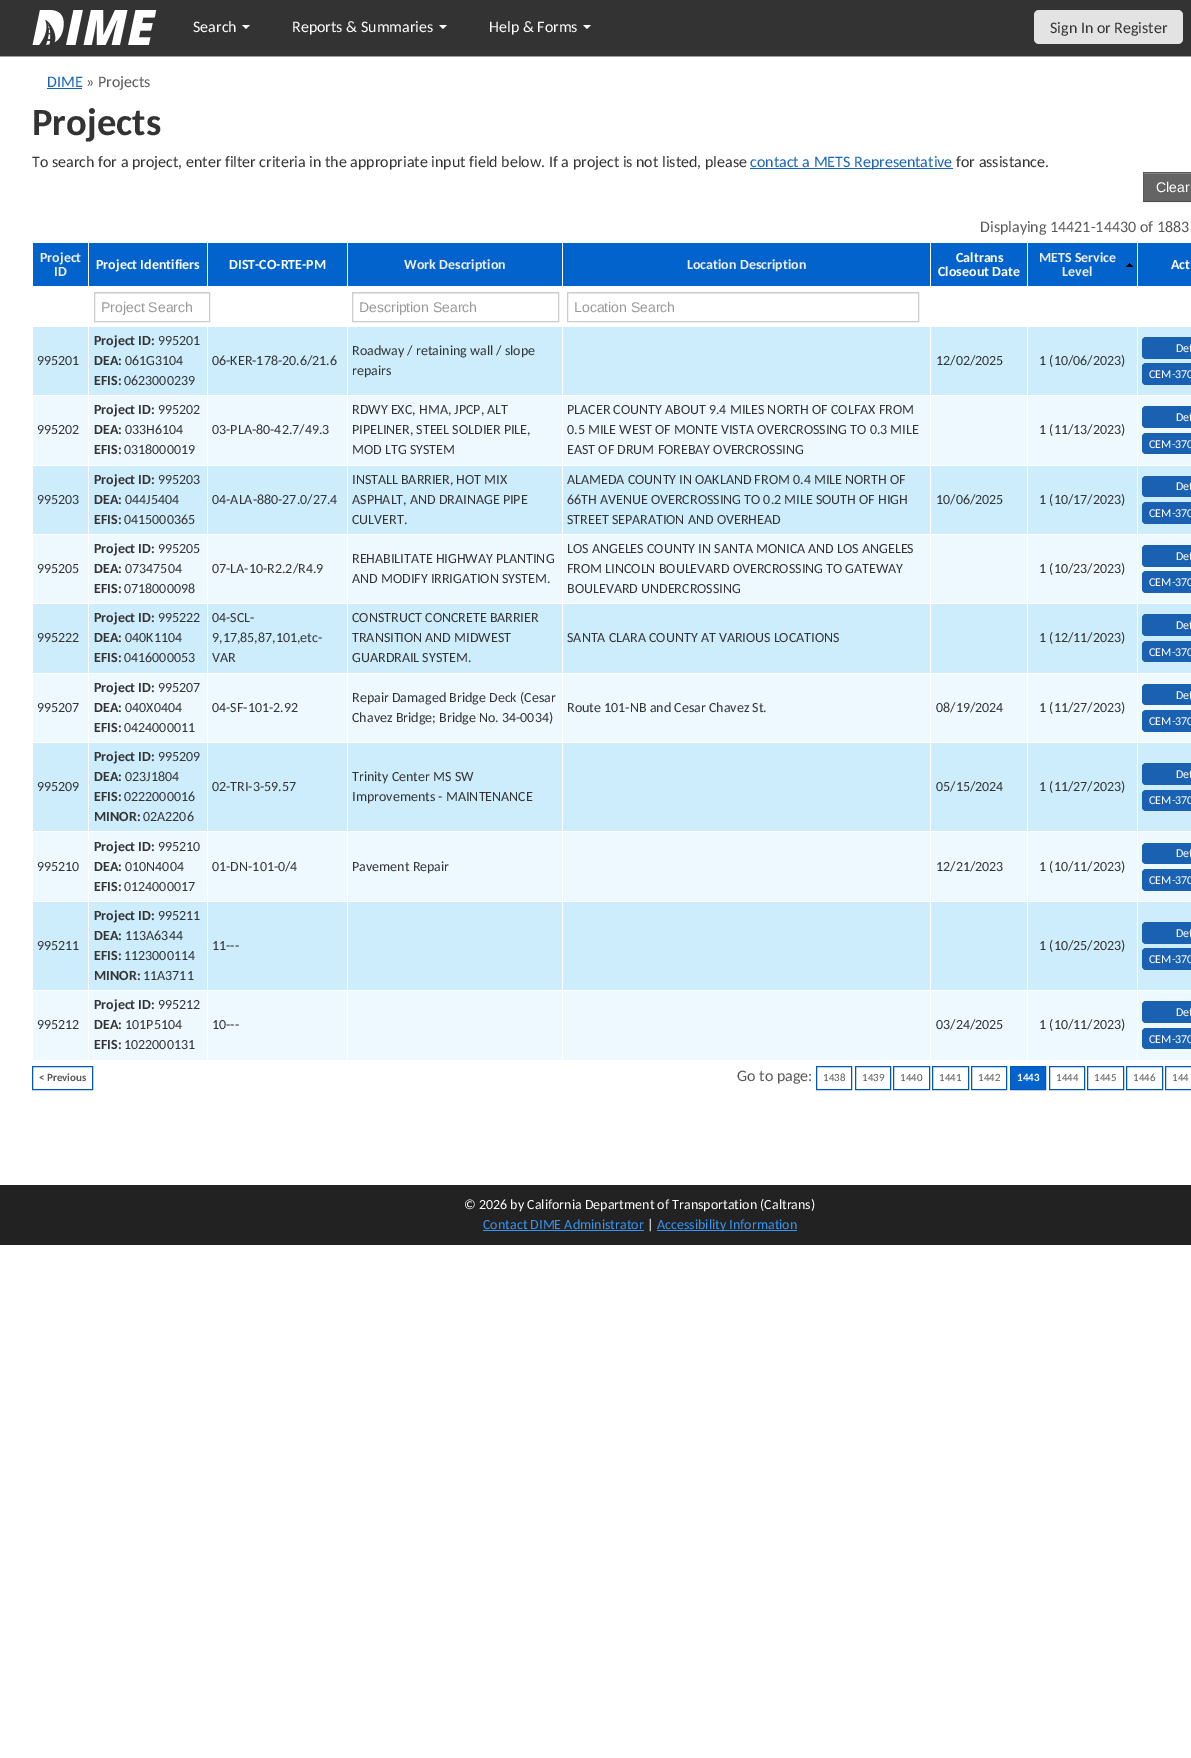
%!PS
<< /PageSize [1191 1758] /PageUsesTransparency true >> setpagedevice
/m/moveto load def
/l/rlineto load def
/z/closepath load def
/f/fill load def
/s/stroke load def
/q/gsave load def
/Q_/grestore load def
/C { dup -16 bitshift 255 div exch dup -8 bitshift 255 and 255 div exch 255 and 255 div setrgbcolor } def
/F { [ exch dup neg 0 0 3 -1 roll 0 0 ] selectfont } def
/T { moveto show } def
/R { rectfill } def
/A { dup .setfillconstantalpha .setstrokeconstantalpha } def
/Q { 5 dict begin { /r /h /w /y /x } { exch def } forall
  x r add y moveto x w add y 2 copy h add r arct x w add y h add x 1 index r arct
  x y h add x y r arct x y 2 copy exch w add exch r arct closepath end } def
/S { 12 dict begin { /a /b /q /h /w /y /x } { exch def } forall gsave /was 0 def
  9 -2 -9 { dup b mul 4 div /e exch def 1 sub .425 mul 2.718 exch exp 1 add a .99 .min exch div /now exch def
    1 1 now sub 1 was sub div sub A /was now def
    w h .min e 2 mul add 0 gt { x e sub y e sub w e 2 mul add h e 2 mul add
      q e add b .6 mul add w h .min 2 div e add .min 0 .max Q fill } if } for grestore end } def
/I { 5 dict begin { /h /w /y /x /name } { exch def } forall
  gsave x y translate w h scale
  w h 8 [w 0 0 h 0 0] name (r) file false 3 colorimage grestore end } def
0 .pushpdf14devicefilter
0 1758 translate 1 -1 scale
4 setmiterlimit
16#FFFFFF C
0 0 1191 1758 R
16#333333 C
0 0 1191 56 R
16#A0A0A0 C
0 56 1191 1 R
(1.rgb) 32 10 125 35 I
/Carlito-Regular 16 F
16#FFFFFF C
(Search) 193 32 T
242 25 m 8 0 l -4 4 l z f
(Reports & Summaries) 292 32 T
439 25 m 8 0 l -4 4 l z f
(Help & Forms) 489 32 T
583 25 m 8 0 l -4 4 l z f
16#E3E3E3 C
1034 10 149 34 5 Q f
16#333333 C
(Sign In or Register) 1050 33 T
16#1864BB C
(DIME) 47 87 T
47 88 35 1 R
16#595959 C
(» Projects) 86 87 T
/Carlito-Bold 38.5 F
16#333333 C
(Projects) 32 135 T
/Carlito-Regular 16 F
(To search for a project, enter filter criteria in the appropriate input field below. If a project is not listed, please) 32 167 T
16#1864BB C
750 168 203 1 R
(contact a METS Representative) 750 167 T
16#333333 C
(for assistance.) 956 167 T
16#000000 C
1143 173 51 30 0 1 .05 S
16#646464 C
1143 172 48 30 R
16#838383 C
1144 173 47 1 R
16#5A5A5A C
1143 172 m 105 0 l -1 1 l -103 0 l z f
16#4B4B4B C
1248 202 m -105 0 l 1 -1 l 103 0 l z f
0.1 A
16#000000 C
1143 202 m 0 -30 l 1 1 l 0 28 l z f
/LiberationSans-Regular 14 F
1 A
16#FFFFFF C
(Clear) 1156 192 T
/Carlito-Regular 16 F
16#595959 C
(Displaying 14421-14430 of 1883) 980 232 T
16#0263CC C
33 243 55 43 R
/Carlito-Bold 14 F
16#EEEEEE C
(Project) 40 262 T
(ID) 54 276 T
16#0263CC C
89 243 118 43 R
16#FFFFFF C
(Project Identifiers) 96 269 T
16#0263CC C
208 243 139 43 R
16#FFFFFF C
(DIST-CO-RTE-PM) 229 269 T
16#0263CC C
348 243 214 43 R
16#EEEEEE C
(Work Description) 404 269 T
16#0263CC C
563 243 367 43 R
16#EEEEEE C
(Location Description) 687 269 T
16#0263CC C
931 243 96 43 R
16#FFFFFF C
(Caltrans) 956 262 T
(Closeout Date) 938 276 T
16#0263CC C
1028 243 109 43 R
(2.rgb) 1126 263 7 4 I
16#EEEEEE C
(METS Service) 1039 262 T
(Level) 1062 276 T
16#0263CC C
1138 243 53 43 R
16#FFFFFF C
(Act) 1171 269 T
16#ECECEC C
95 293 114 1 R
16#CCCCCC C
94.5 292.5 115 29 rectstroke
/LiberationSans-Regular 14 F
16#999999 C
(Project Search) 101 312 T
16#ECECEC C
353 293 205 1 R
16#CCCCCC C
352.5 292.5 206 29 rectstroke
16#999999 C
(Description Search) 359 312 T
16#ECECEC C
568 293 350 1 R
16#CCCCCC C
567.5 292.5 351 29 rectstroke
16#999999 C
(Location Search) 574 312 T
16#CDECFC C
33 327 1158 68 R
/Carlito-Regular 14 F
16#333333 C
(995201) 37 365 T
/Carlito-Bold 14 F
(Project ID:) 94 345 T
/Carlito-Regular 14 F
(995201) 158 345 T
/Carlito-Bold 14 F
(DEA:) 94 365 T
/Carlito-Regular 14 F
(061G3104) 125 365 T
/Carlito-Bold 14 F
(EFIS:) 94 385 T
/Carlito-Regular 14 F
(0623000239) 124 385 T
(06-KER-178-20.6/21.6) 212 365 T
(Roadway / retaining wall / slope) 352 355 T
(repairs) 352 375 T
(12/02/2025) 936 365 T
(1 \(10/06/2023\)) 1039 365 T
16#1B61B2 C
1142 337 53 22 4 Q f
/Carlito-Regular 12 F
16#FFFFFF C
(Det) 1176 352 T
16#1B61B2 C
1142 363 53 22 4 Q f
16#FFFFFF C
(CEM-370) 1149 378 T
16#EEF9FF C
33 396 1158 69 R
/Carlito-Regular 14 F
16#333333 C
(995202) 37 434 T
/Carlito-Bold 14 F
(Project ID:) 94 414 T
/Carlito-Regular 14 F
(995202) 158 414 T
/Carlito-Bold 14 F
(DEA:) 94 434 T
/Carlito-Regular 14 F
(033H6104) 125 434 T
/Carlito-Bold 14 F
(EFIS:) 94 454 T
/Carlito-Regular 14 F
(0318000019) 124 454 T
(03-PLA-80-42.7/49.3) 212 434 T
(RDWY EXC, HMA, JPCP, ALT) 352 414 T
(PIPELINER, STEEL SOLDIER PILE,) 352 434 T
(MOD LTG SYSTEM) 352 454 T
(PLACER COUNTY ABOUT 9.4 MILES NORTH OF COLFAX FROM) 567 414 T
(0.5 MILE WEST OF MONTE VISTA OVERCROSSING TO 0.3 MILE) 567 434 T
(EAST OF DRUM FOREBAY OVERCROSSING) 567 454 T
(1 \(11/13/2023\)) 1039 434 T
16#1B61B2 C
1142 406 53 22 4 Q f
/Carlito-Regular 12 F
16#FFFFFF C
(Det) 1176 421 T
16#1B61B2 C
1142 433 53 21 4 Q f
16#FFFFFF C
(CEM-370) 1149 448 T
16#CDECFC C
33 466 1158 68 R
/Carlito-Regular 14 F
16#333333 C
(995203) 37 504 T
/Carlito-Bold 14 F
(Project ID:) 94 484 T
/Carlito-Regular 14 F
(995203) 158 484 T
/Carlito-Bold 14 F
(DEA:) 94 504 T
/Carlito-Regular 14 F
(044J5404) 125 504 T
/Carlito-Bold 14 F
(EFIS:) 94 524 T
/Carlito-Regular 14 F
(0415000365) 124 524 T
(04-ALA-880-27.0/27.4) 212 504 T
(INSTALL BARRIER, HOT MIX) 352 484 T
(ASPHALT, AND DRAINAGE PIPE) 352 504 T
(CULVERT.) 352 524 T
(ALAMEDA COUNTY IN OAKLAND FROM 0.4 MILE NORTH OF) 567 484 T
(66TH AVENUE OVERCROSSING TO 0.2 MILE SOUTH OF HIGH) 567 504 T
(STREET SEPARATION AND OVERHEAD) 567 524 T
(10/06/2025) 936 504 T
(1 \(10/17/2023\)) 1039 504 T
16#1B61B2 C
1142 476 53 21 4 Q f
/Carlito-Regular 12 F
16#FFFFFF C
(Det) 1176 490 T
16#1B61B2 C
1142 502 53 22 4 Q f
16#FFFFFF C
(CEM-370) 1149 517 T
16#EEF9FF C
33 535 1158 68 R
/Carlito-Regular 14 F
16#333333 C
(995205) 37 573 T
/Carlito-Bold 14 F
(Project ID:) 94 553 T
/Carlito-Regular 14 F
(995205) 158 553 T
/Carlito-Bold 14 F
(DEA:) 94 573 T
/Carlito-Regular 14 F
(07347504) 125 573 T
/Carlito-Bold 14 F
(EFIS:) 94 593 T
/Carlito-Regular 14 F
(0718000098) 124 593 T
(07-LA-10-R2.2/R4.9) 212 573 T
(REHABILITATE HIGHWAY PLANTING) 352 563 T
(AND MODIFY IRRIGATION SYSTEM.) 352 583 T
(LOS ANGELES COUNTY IN SANTA MONICA AND LOS ANGELES) 567 553 T
(FROM LINCOLN BOULEVARD OVERCROSSING TO GATEWAY) 567 573 T
(BOULEVARD UNDERCROSSING) 567 593 T
(1 \(10/23/2023\)) 1039 573 T
16#1B61B2 C
1142 545 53 22 4 Q f
/Carlito-Regular 12 F
16#FFFFFF C
(Det) 1176 560 T
16#1B61B2 C
1142 571 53 22 4 Q f
16#FFFFFF C
(CEM-370) 1149 586 T
16#CDECFC C
33 604 1158 69 R
/Carlito-Regular 14 F
16#333333 C
(995222) 37 642 T
/Carlito-Bold 14 F
(Project ID:) 94 622 T
/Carlito-Regular 14 F
(995222) 158 622 T
/Carlito-Bold 14 F
(DEA:) 94 642 T
/Carlito-Regular 14 F
(040K1104) 125 642 T
/Carlito-Bold 14 F
(EFIS:) 94 662 T
/Carlito-Regular 14 F
(0416000053) 124 662 T
(04-SCL-) 212 622 T
(9,17,85,87,101,etc-) 212 642 T
(VAR) 212 662 T
(CONSTRUCT CONCRETE BARRIER) 352 622 T
(TRANSITION AND MIDWEST) 352 642 T
(GUARDRAIL SYSTEM.) 352 662 T
(SANTA CLARA COUNTY AT VARIOUS LOCATIONS) 567 642 T
(1 \(12/11/2023\)) 1039 642 T
16#1B61B2 C
1142 614 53 22 4 Q f
/Carlito-Regular 12 F
16#FFFFFF C
(Det) 1176 629 T
16#1B61B2 C
1142 641 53 21 4 Q f
16#FFFFFF C
(CEM-370) 1149 656 T
16#EEF9FF C
33 674 1158 68 R
/Carlito-Regular 14 F
16#333333 C
(995207) 37 712 T
/Carlito-Bold 14 F
(Project ID:) 94 692 T
/Carlito-Regular 14 F
(995207) 158 692 T
/Carlito-Bold 14 F
(DEA:) 94 712 T
/Carlito-Regular 14 F
(040X0404) 125 712 T
/Carlito-Bold 14 F
(EFIS:) 94 732 T
/Carlito-Regular 14 F
(0424000011) 124 732 T
(04-SF-101-2.92) 212 712 T
(Repair Damaged Bridge Deck \(Cesar) 352 702 T
(Chavez Bridge; Bridge No. 34-0034\)) 352 722 T
(Route 101-NB and Cesar Chavez St.) 567 712 T
(08/19/2024) 936 712 T
(1 \(11/27/2023\)) 1039 712 T
16#1B61B2 C
1142 684 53 21 4 Q f
/Carlito-Regular 12 F
16#FFFFFF C
(Det) 1176 699 T
16#1B61B2 C
1142 710 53 22 4 Q f
16#FFFFFF C
(CEM-370) 1149 725 T
16#CDECFC C
33 743 1158 88 R
/Carlito-Regular 14 F
16#333333 C
(995209) 37 791 T
/Carlito-Bold 14 F
(Project ID:) 94 761 T
/Carlito-Regular 14 F
(995209) 158 761 T
/Carlito-Bold 14 F
(DEA:) 94 781 T
/Carlito-Regular 14 F
(023J1804) 125 781 T
/Carlito-Bold 14 F
(EFIS:) 94 801 T
/Carlito-Regular 14 F
(0222000016) 124 801 T
/Carlito-Bold 14 F
(MINOR:) 94 821 T
/Carlito-Regular 14 F
(02A2206) 143 821 T
(02-TRI-3-59.57) 212 791 T
(Trinity Center MS SW) 352 781 T
(Improvements - MAINTENANCE) 352 801 T
(05/15/2024) 936 791 T
(1 \(11/27/2023\)) 1039 791 T
16#1B61B2 C
1142 763 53 22 4 Q f
/Carlito-Regular 12 F
16#FFFFFF C
(Det) 1176 778 T
16#1B61B2 C
1142 790 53 21 4 Q f
16#FFFFFF C
(CEM-370) 1149 804 T
16#EEF9FF C
33 832 1158 69 R
/Carlito-Regular 14 F
16#333333 C
(995210) 37 871 T
/Carlito-Bold 14 F
(Project ID:) 94 851 T
/Carlito-Regular 14 F
(995210) 158 851 T
/Carlito-Bold 14 F
(DEA:) 94 871 T
/Carlito-Regular 14 F
(010N4004) 125 871 T
/Carlito-Bold 14 F
(EFIS:) 94 891 T
/Carlito-Regular 14 F
(0124000017) 124 891 T
(01-DN-101-0/4) 212 871 T
(Pavement Repair) 352 871 T
(12/21/2023) 936 871 T
(1 \(10/11/2023\)) 1039 871 T
16#1B61B2 C
1142 843 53 21 4 Q f
/Carlito-Regular 12 F
16#FFFFFF C
(Det) 1176 857 T
16#1B61B2 C
1142 869 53 22 4 Q f
16#FFFFFF C
(CEM-370) 1149 884 T
16#CDECFC C
33 902 1158 88 R
/Carlito-Regular 14 F
16#333333 C
(995211) 37 950 T
/Carlito-Bold 14 F
(Project ID:) 94 920 T
/Carlito-Regular 14 F
(995211) 158 920 T
/Carlito-Bold 14 F
(DEA:) 94 940 T
/Carlito-Regular 14 F
(113A6344) 125 940 T
/Carlito-Bold 14 F
(EFIS:) 94 960 T
/Carlito-Regular 14 F
(1123000114) 124 960 T
/Carlito-Bold 14 F
(MINOR:) 94 980 T
/Carlito-Regular 14 F
(11A3711) 143 980 T
(11---) 212 950 T
(1 \(10/25/2023\)) 1039 950 T
16#1B61B2 C
1142 922 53 22 4 Q f
/Carlito-Regular 12 F
16#FFFFFF C
(Det) 1176 937 T
16#1B61B2 C
1142 948 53 22 4 Q f
16#FFFFFF C
(CEM-370) 1149 963 T
16#EEF9FF C
33 991 1158 69 R
/Carlito-Regular 14 F
16#333333 C
(995212) 37 1029 T
16#FFFFFF C
88 326 1 735 R
/Carlito-Bold 14 F
16#333333 C
(Project ID:) 94 1009 T
/Carlito-Regular 14 F
(995212) 158 1009 T
/Carlito-Bold 14 F
(DEA:) 94 1029 T
/Carlito-Regular 14 F
(101P5104) 125 1029 T
/Carlito-Bold 14 F
(EFIS:) 94 1049 T
/Carlito-Regular 14 F
(1022000131) 124 1049 T
16#FFFFFF C
207 326 1 735 R
16#333333 C
(10---) 212 1029 T
16#FFFFFF C
347 326 1 735 R
562 326 1 735 R
930 326 1 735 R
16#333333 C
(03/24/2025) 936 1029 T
16#FFFFFF C
1027 326 1 735 R
16#333333 C
(1 \(10/11/2023\)) 1039 1029 T
16#FFFFFF C
1137 326 1 735 R
16#1B61B2 C
1142 1001 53 22 4 Q f
/Carlito-Regular 12 F
16#FFFFFF C
(Det) 1176 1016 T
16#1B61B2 C
1142 1028 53 21 4 Q f
16#FFFFFF C
(CEM-370) 1149 1043 T
/Carlito-Regular 16 F
16#595959 C
(Go to page:) 737 1081 T
16#0258B5 C
32.5 1066.5 60 23 rectstroke
/Carlito-Bold 11 F
16#595959 C
(< Previous) 39 1081 T
16#0258B5 C
816.5 1066.5 35 23 rectstroke
/Carlito-Regular 11 F
16#595959 C
(1438) 823 1081 T
16#0258B5 C
855.5 1066.5 35 23 rectstroke
16#595959 C
(1439) 862 1081 T
16#0258B5 C
893.5 1066.5 36 23 rectstroke
16#595959 C
(1440) 900 1081 T
16#0258B5 C
932.5 1066.5 36 23 rectstroke
16#595959 C
(1441) 939 1081 T
16#0258B5 C
971.5 1066.5 35 23 rectstroke
16#595959 C
(1442) 978 1081 T
16#0263CC C
1010.5 1066.5 m 35 0 l 0 23 l -35 0 l z q f Q_
16#0258B5 C
s
/Carlito-Bold 11 F
16#FFFFFF C
(1443) 1017 1081 T
16#0258B5 C
1049.5 1066.5 35 23 rectstroke
/Carlito-Regular 11 F
16#595959 C
(1444) 1056 1081 T
16#0258B5 C
1087.5 1066.5 36 23 rectstroke
16#595959 C
(1445) 1094 1081 T
16#0258B5 C
1126.5 1066.5 36 23 rectstroke
16#595959 C
(1446) 1133 1081 T
16#0258B5 C
1165.5 1066.5 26 23 rectstroke
16#595959 C
(144) 1172 1081 T
16#222222 C
0 1185 1191 60 R
/Carlito-Regular 14 F
16#FFFFFF C
(© 2026 by California Department of Transportation \(Caltrans\)) 464 1209 T
16#3794F1 C
(Contact DIME Administrator) 483 1229 T
483 1230 161 1 R
16#FFFFFF C
(|) 647 1229 T
16#3794F1 C
657 1230 140 1 R
(Accessibility Information) 657 1229 T
.poppdf14devicefilter showpage
